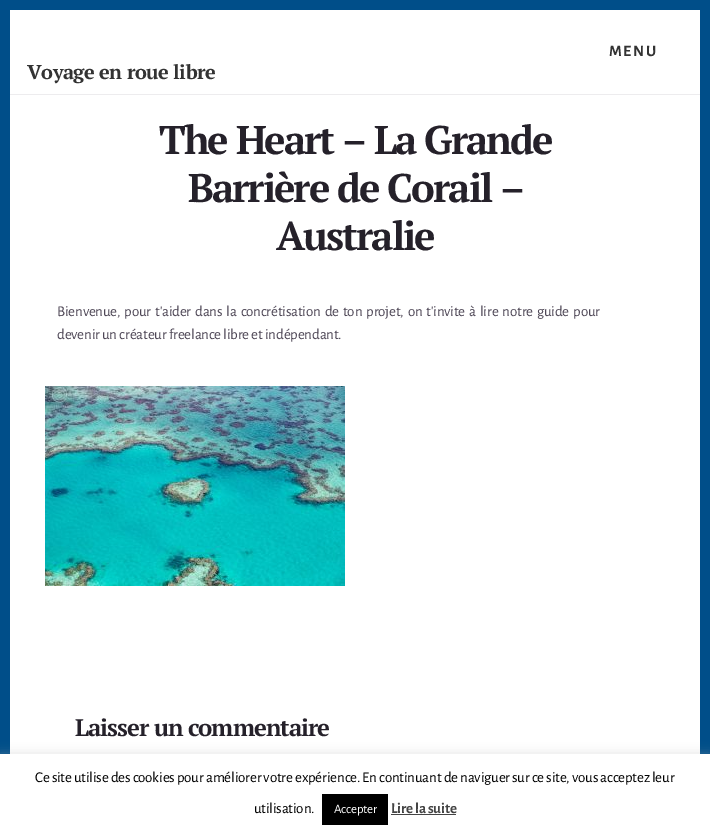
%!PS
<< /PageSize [710 837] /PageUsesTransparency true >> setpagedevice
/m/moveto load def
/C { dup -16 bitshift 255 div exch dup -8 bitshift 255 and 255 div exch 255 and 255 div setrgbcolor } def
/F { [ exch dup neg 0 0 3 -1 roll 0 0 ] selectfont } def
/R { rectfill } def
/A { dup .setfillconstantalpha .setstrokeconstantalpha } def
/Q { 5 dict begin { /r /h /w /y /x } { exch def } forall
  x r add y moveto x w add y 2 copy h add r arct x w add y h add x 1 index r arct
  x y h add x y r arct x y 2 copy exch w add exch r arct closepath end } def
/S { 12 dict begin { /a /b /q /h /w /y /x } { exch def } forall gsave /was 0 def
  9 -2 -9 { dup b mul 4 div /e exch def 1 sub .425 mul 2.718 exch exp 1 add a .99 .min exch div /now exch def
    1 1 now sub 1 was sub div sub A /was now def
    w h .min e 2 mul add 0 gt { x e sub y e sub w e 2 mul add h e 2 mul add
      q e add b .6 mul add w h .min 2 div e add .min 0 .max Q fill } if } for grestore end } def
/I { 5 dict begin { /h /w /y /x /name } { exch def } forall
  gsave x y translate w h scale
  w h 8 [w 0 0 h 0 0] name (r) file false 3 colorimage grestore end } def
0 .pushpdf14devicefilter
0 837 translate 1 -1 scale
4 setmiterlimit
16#004E89 C
0 0 710 837 R
16#FFFFFF C
10 10 690 744 R
16#EDECEE C
10 94 690 1 R
/AlegreyaSans-Bold 16 F
16#333333 C
609 56 m 1.5 0 (MENU) ashow
/PTSerif-Bold 20 F
27 79 m -.5 0 (Voyage en roue libre) ashow
/PTSerif-Bold 40 F
16#25212A C
159 154 m -2 0 (The Heart – La Grande) ashow
188 202 m -2 0 (Barrière de Corail –) ashow
276 250 m -2 0 (Australie) ashow
/AlegreyaSans-Regular 15 F
16#4E4756 C
57 316 m 1.75 0 32 -.2 0 (Bienvenue, pour t'aider dans la concrétisation de ton projet, on t'invite à lire notre guide pour) awidthshow
57 339 m -.2 0 (devenir un créateur freelance libre et indépendant.) ashow
(1.rgb) 45 386 300 200 I
/PTSerif-Bold 24 F
16#25212A C
75 736 m -1 0 (Laisser un commentaire) ashow
16#ACABAB C
0 753 710 83 0 5 .3 S
16#FFFFFF C
0 754 710 83 R
/AlegreyaSans-Regular 15 F
16#000000 C
35 782 m -.2 0 (Ce site utilise des cookies pour améliorer votre expérience. En continuant de naviguer sur ce site, vous acceptez leur) ashow
254 813 m -.2 0 (utilisation.) ashow
322 794 66 31 R
/AlegreyaSans-Regular 13 F
16#FFFFFF C
334 813 m -.2 0 (Accepter) ashow
/AlegreyaSans-Bold 15 F
16#444444 C
391 813 m -.2 0 (Lire la suite) ashow
391 814 65 1 R
.poppdf14devicefilter showpage
